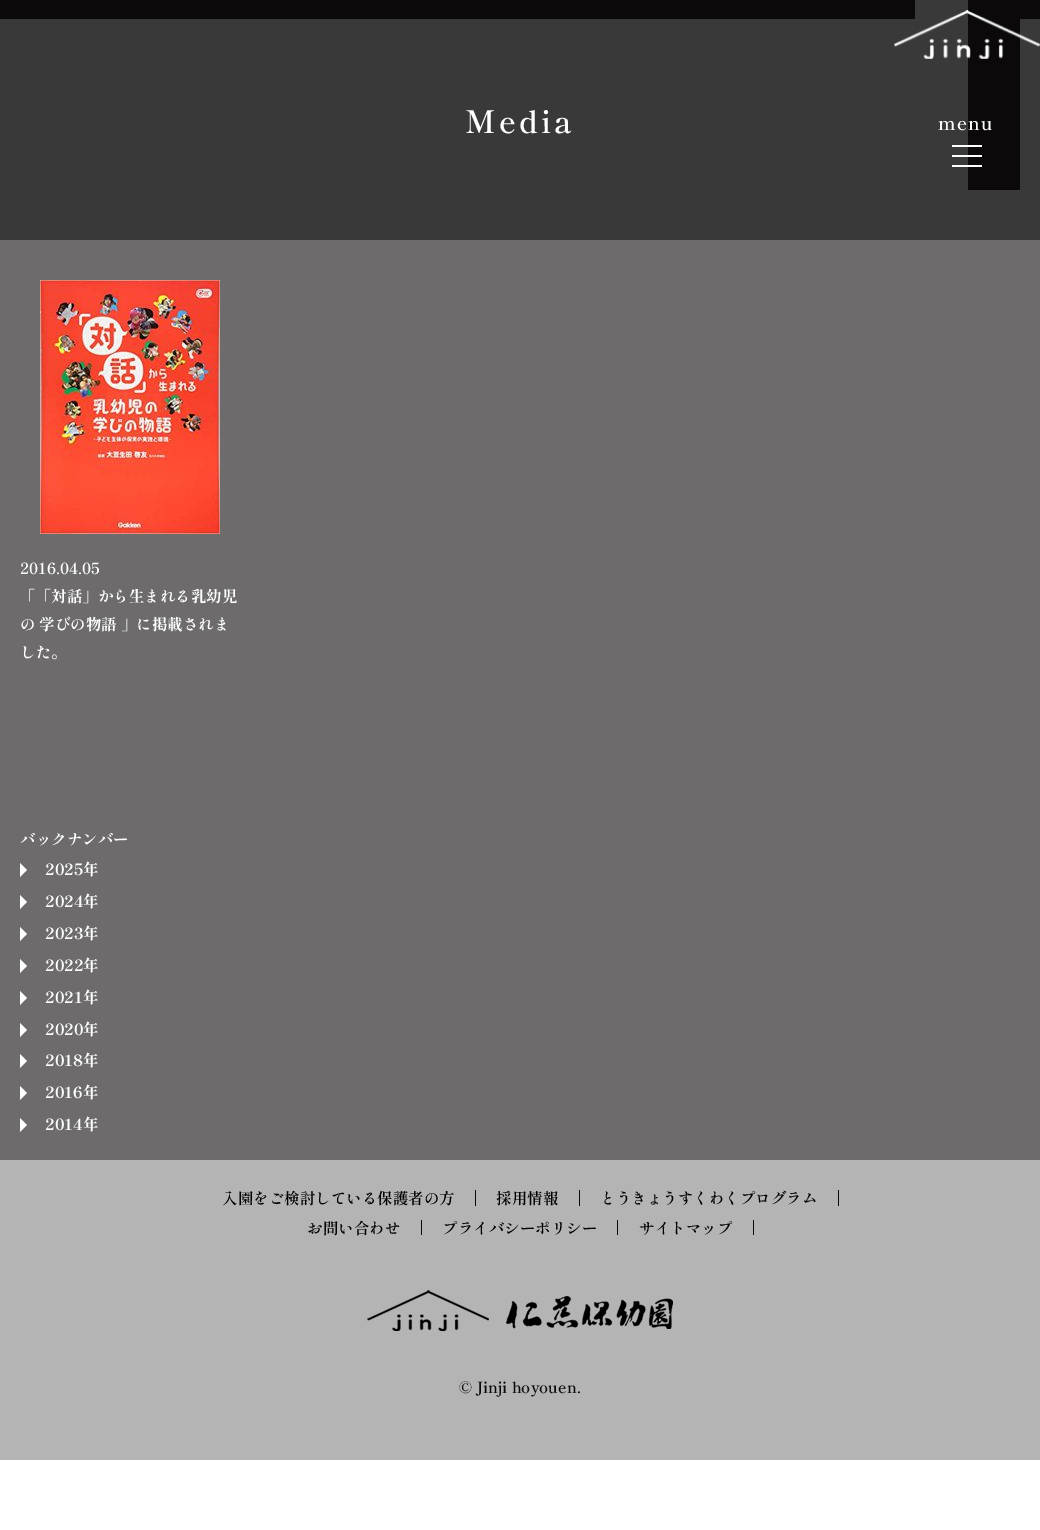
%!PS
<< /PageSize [1040 1530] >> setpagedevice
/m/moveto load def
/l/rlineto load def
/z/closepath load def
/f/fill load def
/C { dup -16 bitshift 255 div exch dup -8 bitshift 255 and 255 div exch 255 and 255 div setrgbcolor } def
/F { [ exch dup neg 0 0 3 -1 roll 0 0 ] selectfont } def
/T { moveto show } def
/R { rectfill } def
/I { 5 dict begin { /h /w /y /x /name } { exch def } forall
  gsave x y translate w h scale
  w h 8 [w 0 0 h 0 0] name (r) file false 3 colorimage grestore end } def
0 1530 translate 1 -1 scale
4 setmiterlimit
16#FFFFFF C
0 0 1040 1530 R
16#0B090A C
0 0 1040 19 R
16#393939 C
0 19 1040 221 R
/ShipporiMincho-SemiBold 31 F
16#FFFFFF C
465 133 m 3 0 (Media) ashow
16#6D6B6C C
0 240 1040 920 R
(1.rgb) 40 280 180 254 I
/ShipporiMincho-SemiBold 15.5 F
16#FFFFFF C
(2016.04.05) 20 574 T
/ShipporiMincho-Bold 15.5 F
(「「対話」から生まれる乳幼児) 20 602 T
(の 学びの物語 」に掲載されま) 20 630 T
(した。) 20 658 T
(バックナンバー) 20 845 T
20 877 m 0 -14 l 7 7 l z f
(2025年) 45 875 T
20 909 m 0 -14 l 7 7 l z f
(2024年) 45 907 T
20 941 m 0 -14 l 7 7 l z f
(2023年) 45 939 T
20 973 m 0 -14 l 7 7 l z f
(2022年) 45 971 T
20 1005 m 0 -14 l 7 7 l z f
(2021年) 45 1003 T
20 1037 m 0 -14 l 7 7 l z f
(2020年) 45 1035 T
20 1068 m 0 -14 l 7 7 l z f
(2018年) 45 1066 T
20 1100 m 0 -14 l 7 7 l z f
(2016年) 45 1098 T
20 1132 m 0 -14 l 7 7 l z f
(2014年) 45 1130 T
16#393939 C
915 0 53 19 R
16#0B090A C
968 19 52 171 R
(2.rgb) 894 10 146 49 I
/ShipporiMincho-SemiBold 18.5 F
16#FFFFFF C
938 130 m 1 0 (menu) ashow
952 145 30 2 R
952 155 30 2 R
952 165 30 2 R
16#B4B4B4 C
0 1160 1040 300 R
16#0B090A C
475 1190 1 16 R
/ShipporiMincho-SemiBold 15.5 F
16#000000 C
(入園をご検討している保護者の方) 222 1204 T
16#0B090A C
579 1190 1 16 R
16#000000 C
(採用情報) 496 1204 T
16#0B090A C
838 1190 1 16 R
16#000000 C
(とうきょうすくわくプログラム) 600 1204 T
16#0B090A C
421 1220 1 15 R
16#000000 C
(お問い合わせ) 307 1234 T
16#0B090A C
617 1220 1 15 R
16#000000 C
(プライバシーポリシー) 442 1234 T
16#0B090A C
753 1220 1 15 R
16#000000 C
(サイトマップ) 639 1234 T
(3.rgb) 367 1290 306 41 I
16#0B090A C
(© Jinji hoyouen.) 459 1393 T
showpage
